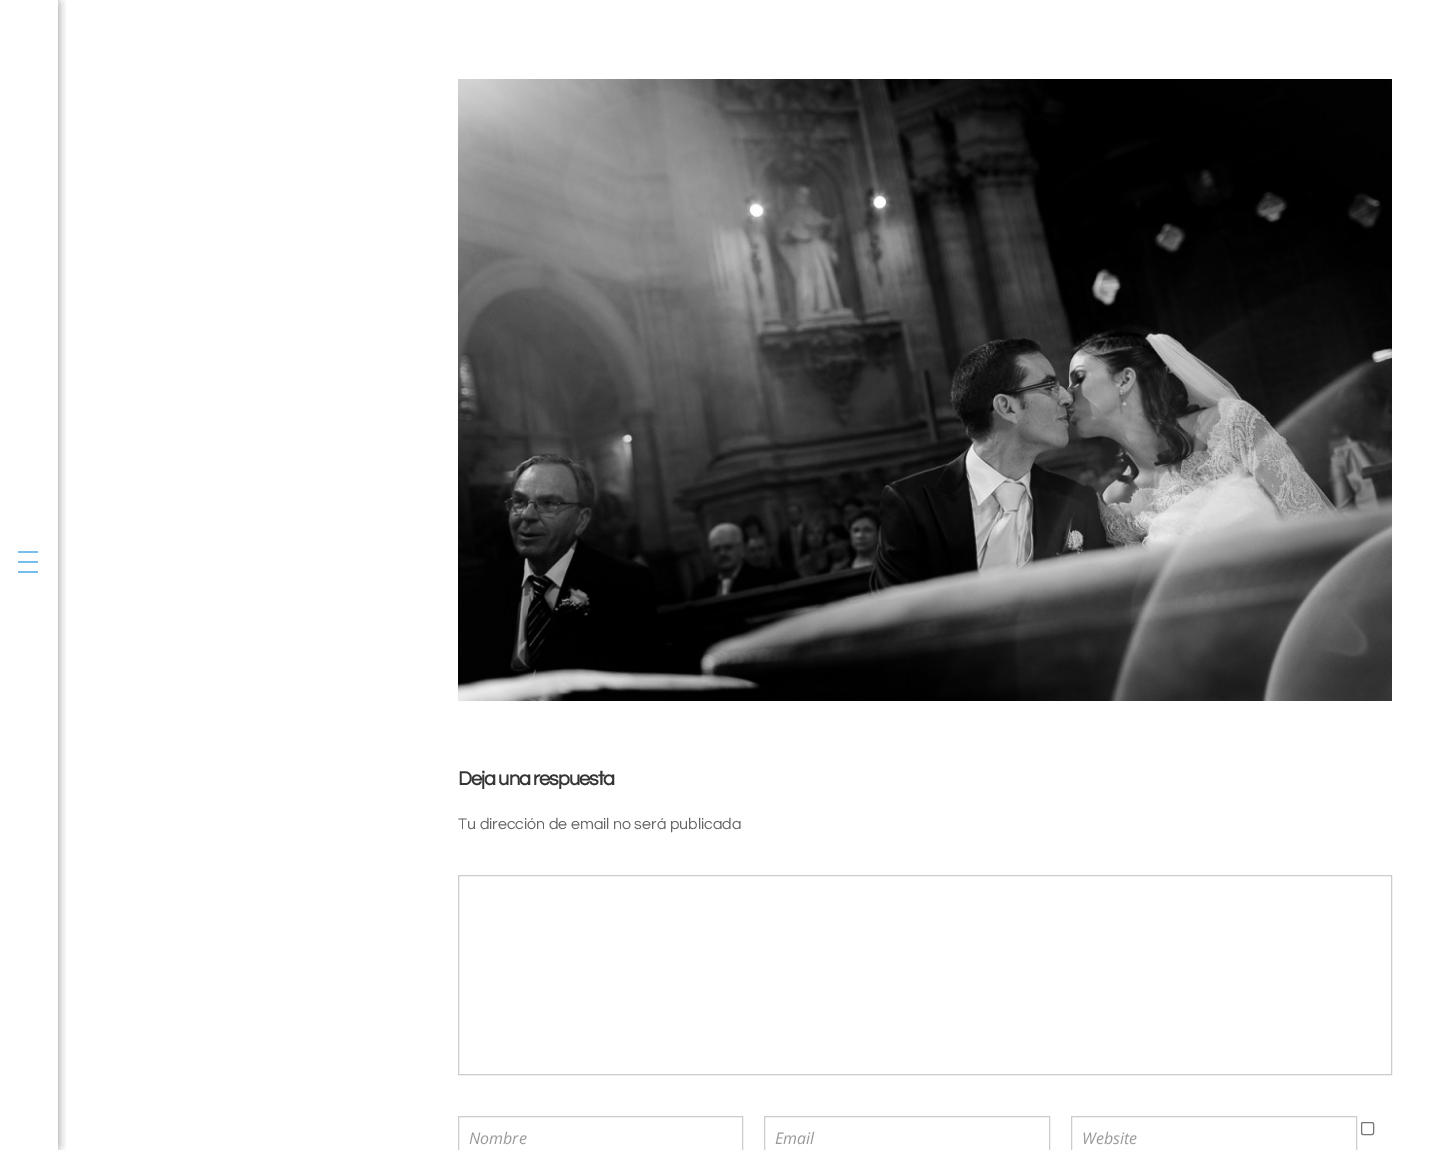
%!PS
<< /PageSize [1442 1150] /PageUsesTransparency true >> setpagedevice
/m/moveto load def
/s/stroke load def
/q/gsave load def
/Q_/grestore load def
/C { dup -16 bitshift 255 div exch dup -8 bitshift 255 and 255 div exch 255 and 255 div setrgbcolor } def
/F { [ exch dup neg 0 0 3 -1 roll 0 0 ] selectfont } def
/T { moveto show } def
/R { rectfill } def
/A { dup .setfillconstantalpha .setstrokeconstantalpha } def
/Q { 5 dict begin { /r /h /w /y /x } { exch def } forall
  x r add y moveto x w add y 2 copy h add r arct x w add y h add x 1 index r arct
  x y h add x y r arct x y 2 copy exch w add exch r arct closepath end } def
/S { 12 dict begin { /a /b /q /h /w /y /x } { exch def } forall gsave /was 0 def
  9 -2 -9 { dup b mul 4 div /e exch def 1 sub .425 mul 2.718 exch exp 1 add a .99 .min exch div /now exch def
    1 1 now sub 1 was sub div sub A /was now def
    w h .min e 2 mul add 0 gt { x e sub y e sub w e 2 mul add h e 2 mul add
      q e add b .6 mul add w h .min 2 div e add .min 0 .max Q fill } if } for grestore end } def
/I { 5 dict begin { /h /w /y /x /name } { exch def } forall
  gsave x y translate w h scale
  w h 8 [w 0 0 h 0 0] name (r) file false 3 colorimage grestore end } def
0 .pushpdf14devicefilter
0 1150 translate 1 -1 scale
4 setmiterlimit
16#FFFFFF C
0 0 1442 1150 R
q
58 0 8 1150 rectclip
16#000000 C
4 4 50 1142 0 6 1 S
Q_
16#77BEED C
18 561 20 2 R
18 551 20 2 R
18 571 20 2 R
(1.rgb) 458 79 934 622 I
/Questrial-Bold 20 F
16#353535 C
458 785 m -1 0 (Deja una respuesta) ashow
/Questrial-Regular 16 F
16#666666 C
(Tu dirección de email no será publicada) 458 829 T
16#CCCCCC C
458.5 875.5 933 199 rectstroke
16#767676 C
1361.5 1122.5 12 12 1.5 Q s
16#CCCCCC C
458.5 1116.5 284 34 rectstroke
/OpenSans-Italic 16 F
16#999999 C
(Nombre) 469 1144 T
16#CCCCCC C
764.5 1116.5 285 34 rectstroke
16#999999 C
(Email) 775 1144 T
16#CCCCCC C
1071.5 1116.5 285 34 rectstroke
16#999999 C
(Website) 1082 1144 T
.poppdf14devicefilter showpage
